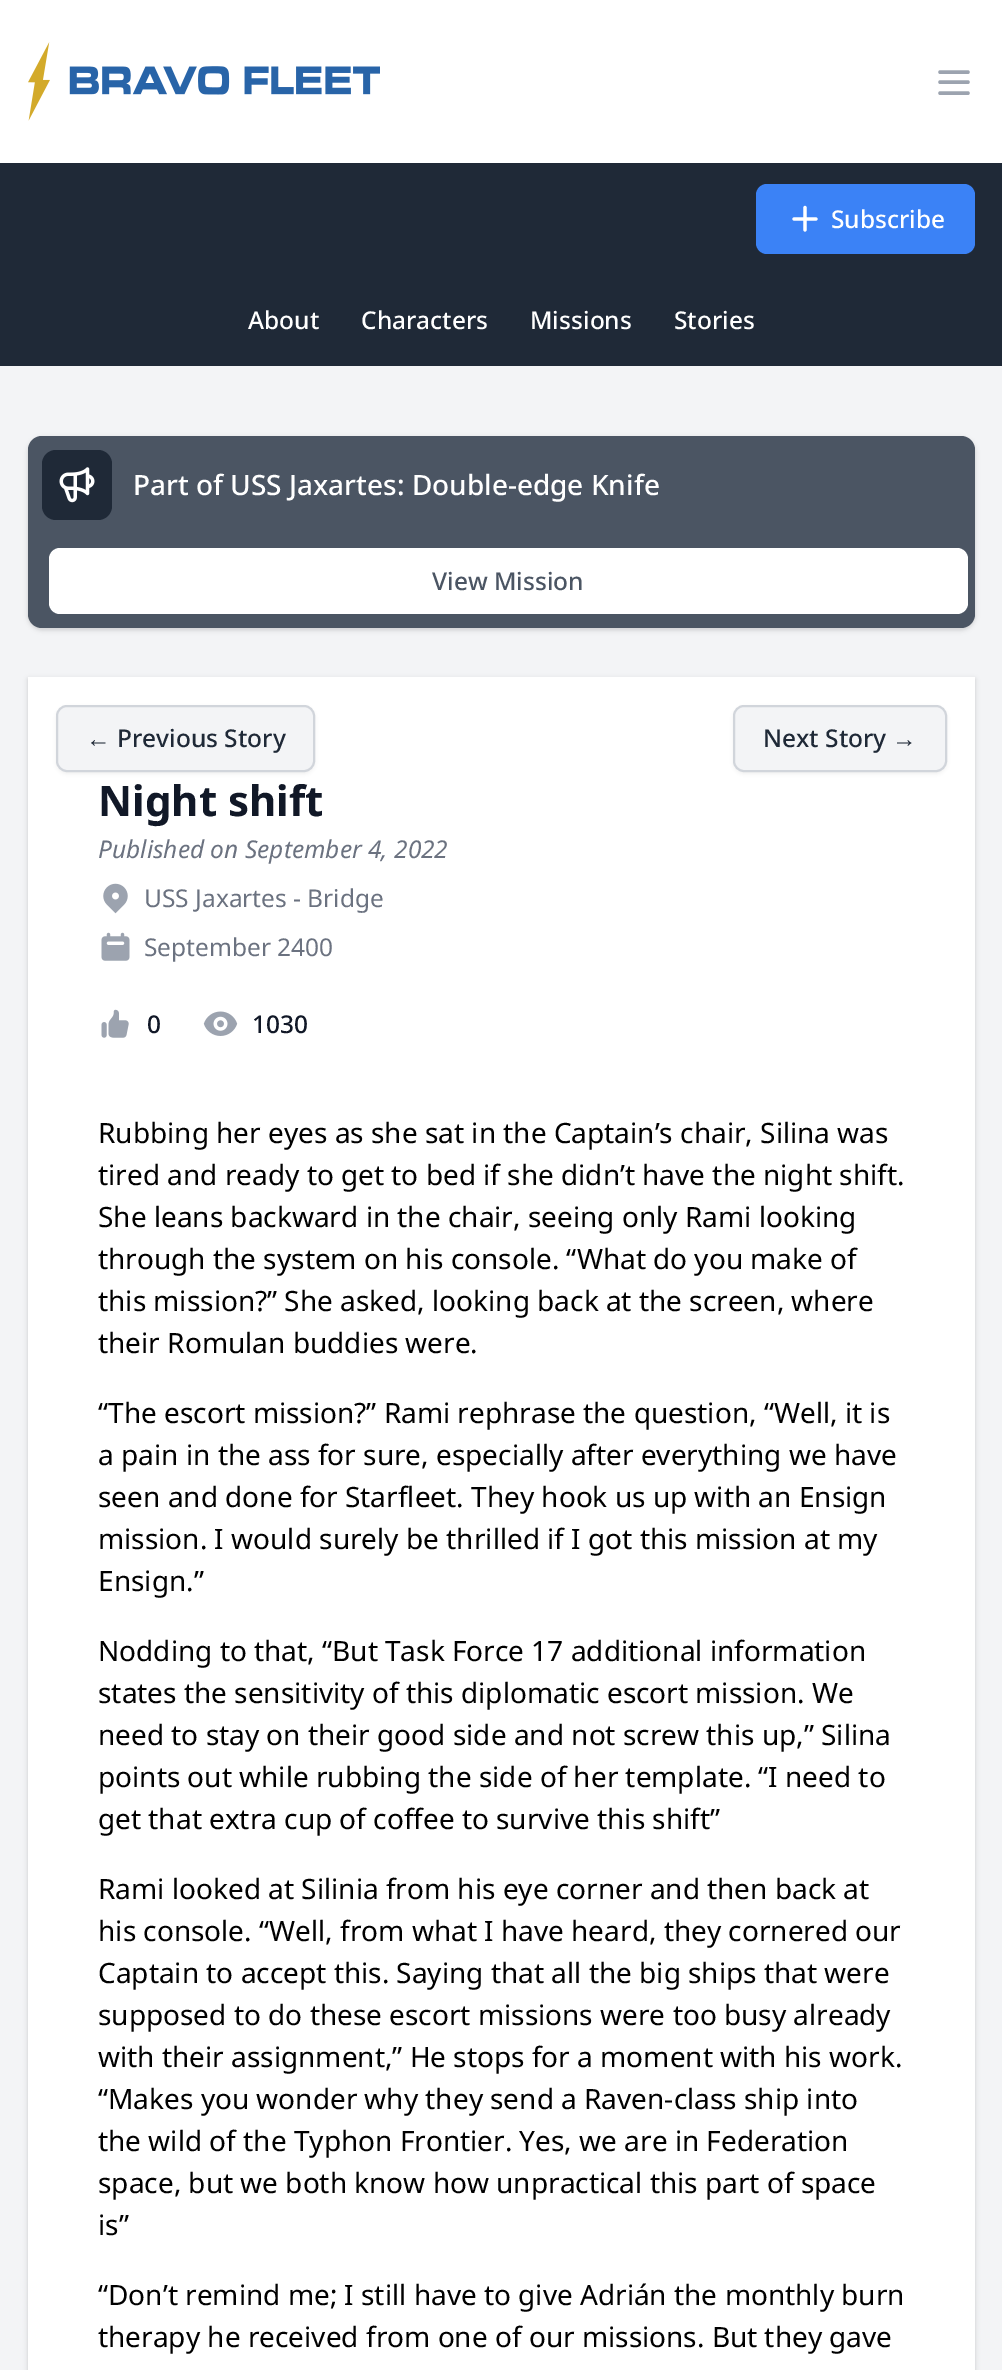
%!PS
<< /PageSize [1002 2370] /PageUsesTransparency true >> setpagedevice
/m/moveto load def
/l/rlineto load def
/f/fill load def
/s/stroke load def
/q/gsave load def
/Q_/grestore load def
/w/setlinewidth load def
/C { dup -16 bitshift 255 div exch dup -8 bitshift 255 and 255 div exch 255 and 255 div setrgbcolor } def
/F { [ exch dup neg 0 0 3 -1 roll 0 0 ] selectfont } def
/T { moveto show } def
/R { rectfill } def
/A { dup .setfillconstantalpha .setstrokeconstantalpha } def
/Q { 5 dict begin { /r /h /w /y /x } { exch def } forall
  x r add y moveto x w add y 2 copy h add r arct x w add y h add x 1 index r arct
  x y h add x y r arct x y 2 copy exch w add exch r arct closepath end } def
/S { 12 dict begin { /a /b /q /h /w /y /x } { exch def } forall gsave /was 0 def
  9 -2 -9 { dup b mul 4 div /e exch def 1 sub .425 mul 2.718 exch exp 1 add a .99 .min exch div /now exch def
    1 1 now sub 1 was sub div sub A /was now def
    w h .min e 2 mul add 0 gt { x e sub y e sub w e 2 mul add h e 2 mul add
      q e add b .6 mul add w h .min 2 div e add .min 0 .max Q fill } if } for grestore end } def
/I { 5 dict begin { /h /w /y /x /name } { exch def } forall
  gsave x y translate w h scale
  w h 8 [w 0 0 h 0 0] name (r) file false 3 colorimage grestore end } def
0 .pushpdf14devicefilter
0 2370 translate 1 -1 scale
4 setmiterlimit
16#FFFFFF C
0 0 1002 2370 R
(1.rgb) 28 42 352 79 I
16#9CA3AF C
3.5 w
1 setlinecap
1 setlinejoin
940 72 m 28 0 l 940 82 m 28 0 l 940 93 m 28 0 l s
16#1F2937 C
0 163 1002 203 R
16#3B82F6 C
756 184 219 70 11 Q f
16#FFFFFF C
3.2 w
805 207.5 m 0 22.5 l 794 219 m 22 0 l s
/NotoSans-Medium 24.5 F
(Subscribe) 831 228 T
(About) 248 329 T
(Characters) 361 329 T
(Missions) 530 329 T
(Stories) 674 329 T
16#F3F4F6 C
0 366 1002 2004 R
16#000000 C
28 438 947 192 14 2 .06 S
28 438 947 192 14 2.5 .1 S
16#4B5563 C
28 436 947 192 14 Q f
16#1F2937 C
42 450 70 70 14 Q f
(2.rgb) 59 467 36 36 I
/NotoSans-Medium 28 F
16#FFFFFF C
(Part of USS Jaxartes: Double-edge Knife) 133 495 T
49 548 919 66 11 Q f
/NotoSans-Medium 24.5 F
16#4B5563 C
(View Mission) 432 590 T
16#000000 C
28 679 947 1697 0 2 .06 S
28 679 947 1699 0 2.5 .1 S
16#FFFFFF C
28 677 947 1693 R
16#000000 C
56 707 259 67 11 2 .05 S
16#F3F4F6 C
57 706 257 65 10 Q q f Q_
16#D1D5DB C
2 w
0 setlinecap
0 setlinejoin
s
/LiberationSans-Regular 24.5 F
16#1F2937 C
(←) 86 747 T
/NotoSans-Medium 24.5 F
(Previous Story) 117 747 T
16#000000 C
733 707 214 67 11 2 .05 S
16#F3F4F6 C
734 706 212 65 10 Q q f Q_
16#D1D5DB C
s
16#1F2937 C
(Next Story) 763 747 T
/LiberationSans-Regular 24.5 F
(→) 892 747 T
/NotoSans-Bold 42 F
16#111827 C
(Night shift) 98 816 T
/NotoSans-Italic 24.5 F
16#6B7280 C
(Published on September 4, 2022) 98 858 T
(3.rgb) 103 883 25 31 I
/NotoSans-Regular 24.5 F
(USS Jaxartes - Bridge) 144 907 T
(4.rgb) 101 932 29 29 I
(September 2400) 144 956 T
(5.rgb) 101 1009 28 29 I
/NotoSans-Medium 24.5 F
16#111827 C
(0) 147 1033 T
(6.rgb) 203 1011 35 25 I
(1030) 252 1033 T
/NotoSans-Regular 28 F
16#000000 C
(Rubbing her eyes as she sat in the Captain’s chair, Silina was) 98 1143 T
(tired and ready to get to bed if she didn’t have the night shift.) 98 1185 T
(She leans backward in the chair, seeing only Rami looking) 98 1227 T
(through the system on his console. “What do you make of) 98 1269 T
(this mission?” She asked, looking back at the screen, where) 98 1311 T
(their Romulan buddies were.) 98 1353 T
(“The escort mission?” Rami rephrase the question, “Well, it is) 98 1423 T
(a pain in the ass for sure, especially after everything we have) 98 1465 T
(seen and done for Starfleet. They hook us up with an Ensign) 98 1507 T
(mission. I would surely be thrilled if I got this mission at my) 98 1549 T
(Ensign.”) 98 1591 T
(Nodding to that, “But Task Force 17 additional information) 98 1661 T
(states the sensitivity of this diplomatic escort mission. We) 98 1703 T
(need to stay on their good side and not screw this up,” Silina) 98 1745 T
(points out while rubbing the side of her template. “I need to) 98 1787 T
(get that extra cup of coffee to survive this shift”) 98 1829 T
(Rami looked at Silinia from his eye corner and then back at) 98 1899 T
(his console. “Well, from what I have heard, they cornered our) 98 1941 T
(Captain to accept this. Saying that all the big ships that were) 98 1983 T
(supposed to do these escort missions were too busy already) 98 2025 T
(with their assignment,” He stops for a moment with his work.) 98 2067 T
(“Makes you wonder why they send a Raven-class ship into) 98 2109 T
(the wild of the Typhon Frontier. Yes, we are in Federation) 98 2151 T
(space, but we both know how unpractical this part of space) 98 2193 T
(is”) 98 2235 T
(“Don’t remind me; I still have to give Adrián the monthly burn) 98 2305 T
(therapy he received from one of our missions. But they gave) 98 2347 T
.poppdf14devicefilter showpage
